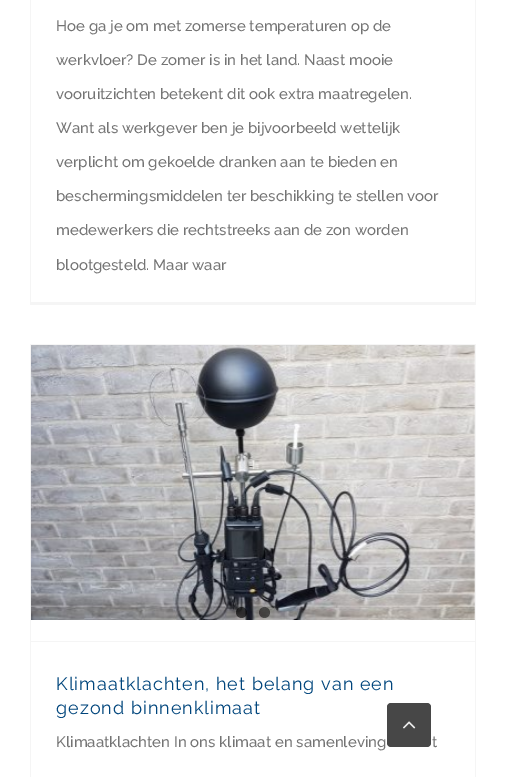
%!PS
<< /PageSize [506 777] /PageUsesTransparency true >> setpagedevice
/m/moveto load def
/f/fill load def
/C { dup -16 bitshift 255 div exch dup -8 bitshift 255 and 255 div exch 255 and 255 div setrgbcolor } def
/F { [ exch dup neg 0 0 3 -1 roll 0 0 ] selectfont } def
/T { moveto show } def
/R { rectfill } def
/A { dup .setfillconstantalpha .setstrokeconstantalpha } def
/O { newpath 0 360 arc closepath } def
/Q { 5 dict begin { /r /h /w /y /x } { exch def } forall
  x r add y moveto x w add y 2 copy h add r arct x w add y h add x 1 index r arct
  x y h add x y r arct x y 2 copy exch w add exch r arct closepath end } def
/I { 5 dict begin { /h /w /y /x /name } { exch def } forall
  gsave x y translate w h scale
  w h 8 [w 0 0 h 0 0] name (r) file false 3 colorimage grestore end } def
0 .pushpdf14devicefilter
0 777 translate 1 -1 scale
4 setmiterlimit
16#FFFFFF C
0 0 506 777 R
16#F5F5F5 C
475 0 1 305 R
30 302 446 3 R
30 0 1 305 R
/Raleway-Medium 15 F
16#747474 C
(Hoe ga je om met zomerse temperaturen op de) 56 31 T
(werkvloer? De zomer is in het land. Naast mooie) 56 65 T
(vooruitzichten betekent dit ook extra maatregelen.) 56 99 T
(Want als werkgever ben je bijvoorbeeld wettelijk) 56 133 T
(verplicht om gekoelde dranken aan te bieden en) 56 167 T
(beschermingsmiddelen ter beschikking te stellen voor) 56 201 T
(medewerkers die rechtstreeks aan de zon worden) 56 235 T
(blootgesteld. Maar waar) 56 270 T
16#F5F5F5 C
30 344 446 1 R
475 344 1 433 R
30 344 1 433 R
31 641 444 1 R
(1.rgb) 31 345 444 275 I
0.6 A
16#000000 C
241.5 612.5 5.5 O f
0.5 A
264.5 612.5 5.5 O f
/Raleway-Regular 18 F
1 A
16#00457C C
56 690 m 1 0 (Klimaatklachten, het belang van een) ashow
56 714 m 1 0 (gezond binnenklimaat) ashow
/Raleway-Medium 15 F
16#747474 C
(Klimaatklachten In ons klimaat en samenleving) 56 747 T
(t) 432 747 T
0.9 A
16#333333 C
387 703 44 44 4 Q f
1 A
(2.rgb) 403 721 13 8 I
.poppdf14devicefilter showpage
